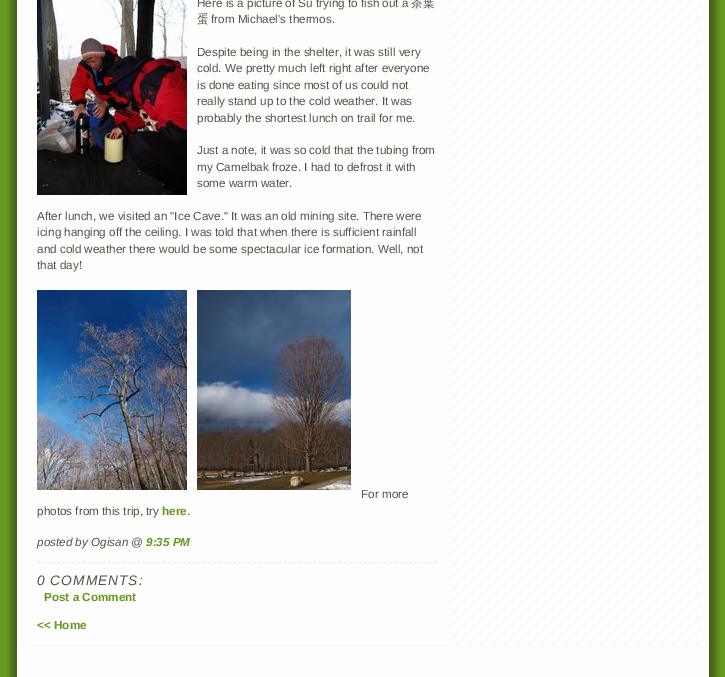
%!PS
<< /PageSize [725 677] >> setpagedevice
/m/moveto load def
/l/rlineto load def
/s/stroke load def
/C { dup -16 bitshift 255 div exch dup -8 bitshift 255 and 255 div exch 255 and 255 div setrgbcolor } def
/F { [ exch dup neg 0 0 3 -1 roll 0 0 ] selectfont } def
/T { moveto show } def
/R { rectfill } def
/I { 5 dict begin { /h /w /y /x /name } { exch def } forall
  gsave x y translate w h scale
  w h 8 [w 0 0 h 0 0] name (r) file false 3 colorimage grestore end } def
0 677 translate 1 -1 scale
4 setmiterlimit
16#669922 C
0 0 725 677 R
(1.rgb) 6 0 715 677 I
16#FFFFFF C
17 0 1 645 R
(2.rgb) 451 0 250 645 I
(3.rgb) 37 0 150 195 I
/LiberationSans-Regular 11.7 F
16#555544 C
(Here is a picture of Su trying to fish out a) 197 7 T
/WenQuanYiZenHei-Medium 11.7 F
(茶葉) 411 7 T
(蛋) 197 23 T
/LiberationSans-Regular 11.7 F
(from Michael's thermos.) 211 23 T
(Despite being in the shelter, it was still very) 197 56 T
(cold. We pretty much left right after everyone) 197 72 T
(is done eating since most of us could not) 197 89 T
(really stand up to the cold weather. It was) 197 105 T
(probably the shortest lunch on trail for me.) 197 122 T
(Just a note, it was so cold that the tubing from) 197 154 T
(my Camelbak froze. I had to defrost it with) 197 171 T
(some warm water.) 197 187 T
(After lunch, we visited an "Ice Cave." It was an old mining site. There were) 37 220 T
(icing hanging off the ceiling. I was told that when there is sufficient rainfall) 37 236 T
(and cold weather there would be some spectacular ice formation. Well, not) 37 253 T
(that day!) 37 269 T
(4.rgb) 37 290 150 200 I
(5.rgb) 197 290 154 200 I
(For more) 361 498 T
(photos from this trip, try) 37 515 T
/LiberationSans-Bold 11.7 F
16#669922 C
(here) 162 515 T
/LiberationSans-Regular 11.7 F
16#555544 C
(.) 187 515 T
/LiberationSans-Italic 11.7 F
(posted by Ogisan @) 37 546 T
/LiberationSans-BoldItalic 11.7 F
16#669922 C
(9:35 PM) 146 546 T
16#EEEEDD C
[3 2.03] 0 setdash
37 562.5 m 400 0 l s
/LiberationSans-Italic 13.75 F
16#555544 C
37 585 m 1 0 (0 COMMENTS:) ashow
/LiberationSans-Bold 11.7 F
16#669922 C
(Post a Comment) 44 601 T
(<< Home) 37 629 T
16#FDFDFD C
17 646 1 31 R
16#F9F9F9 C
17 645 692 1 R
showpage
